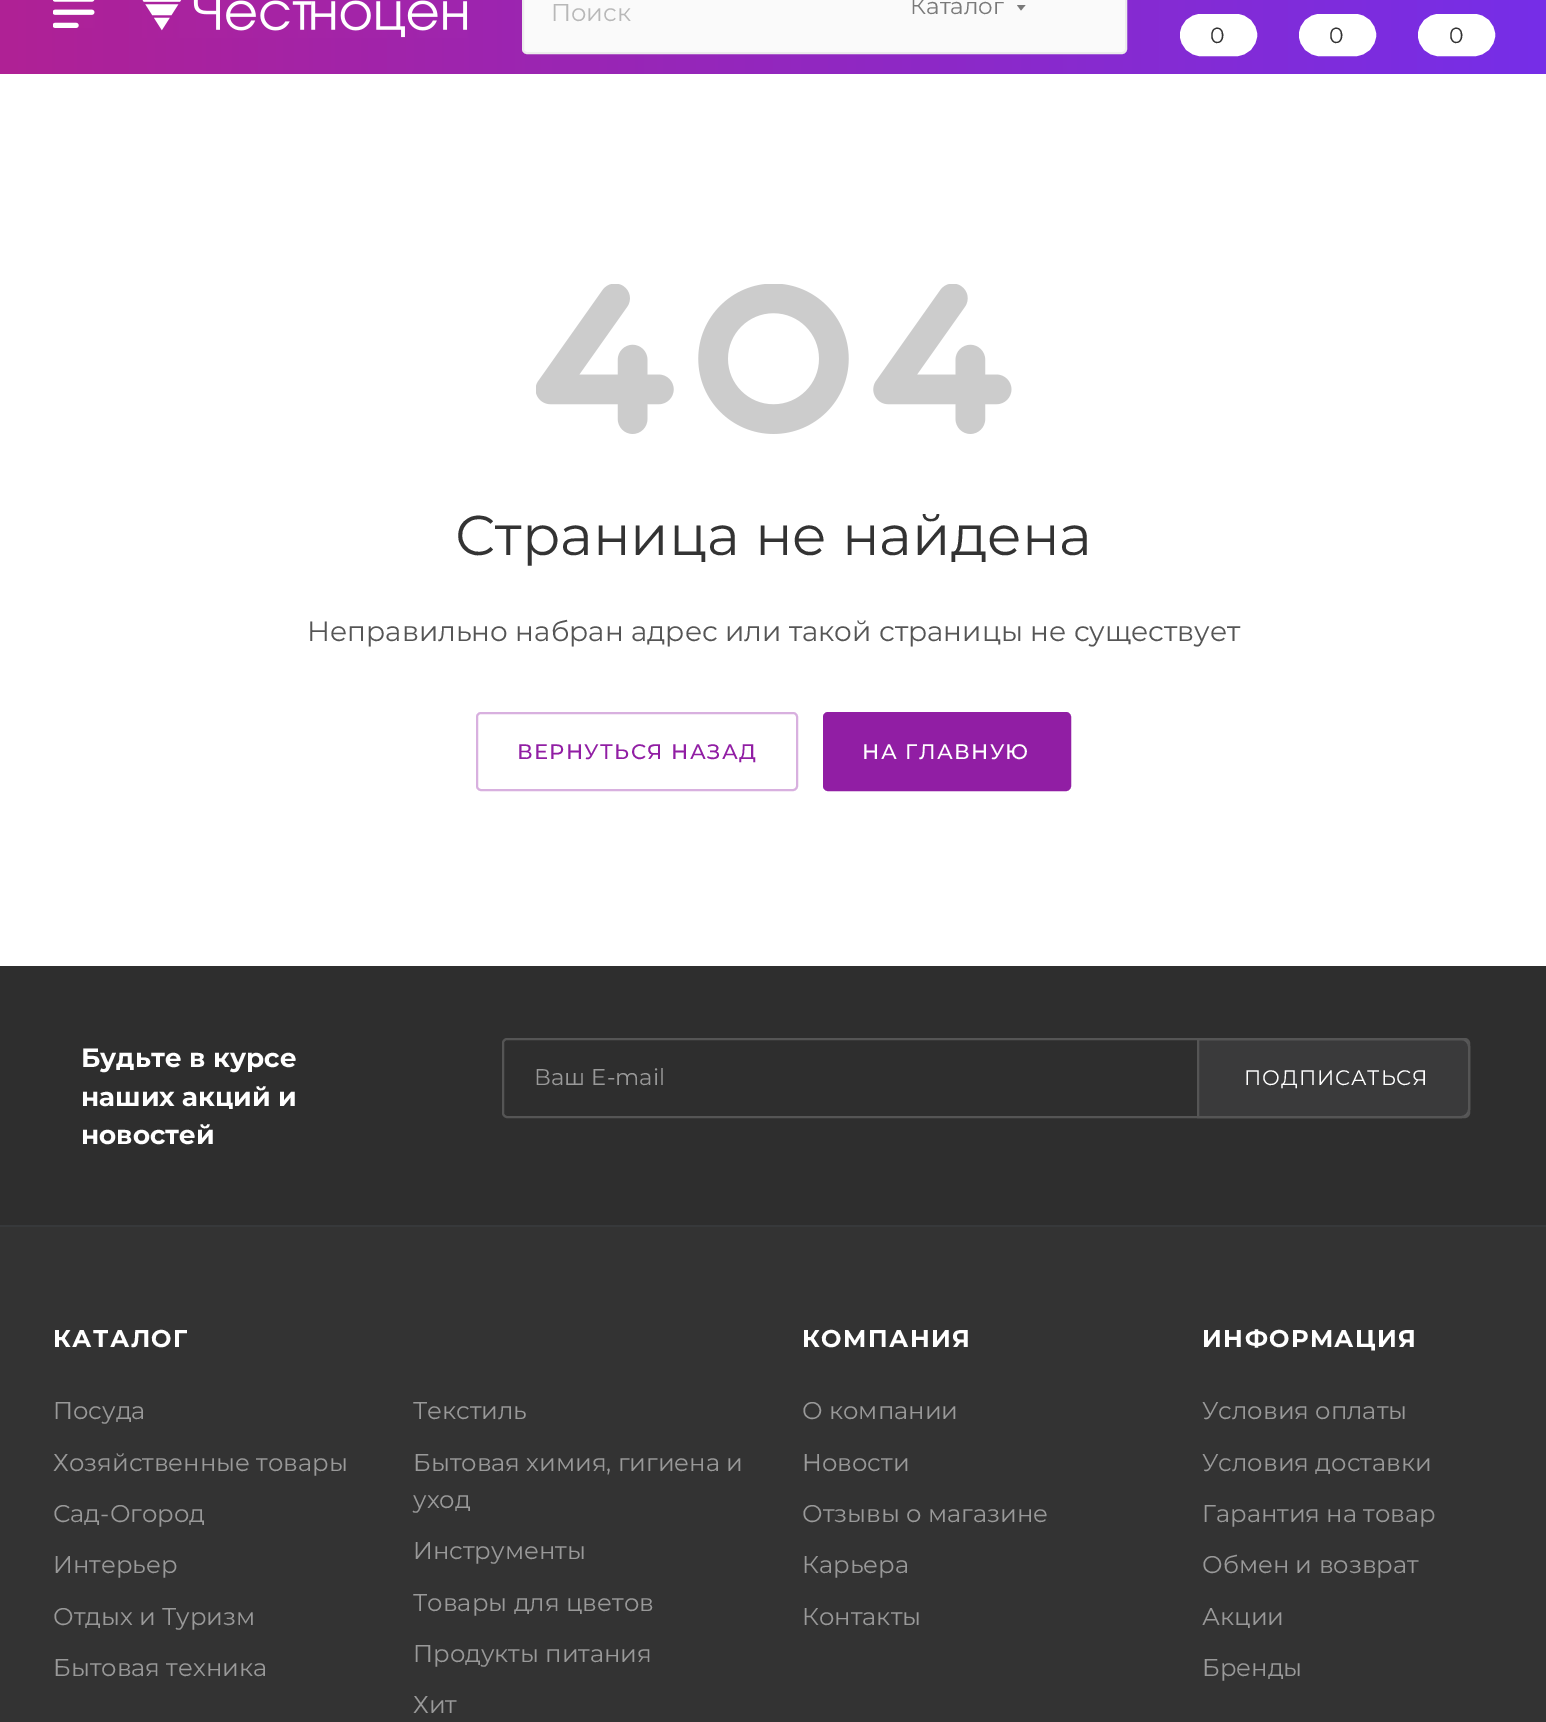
%!PS
<< /PageSize [1546 1722] /PageUsesTransparency true >> setpagedevice
/m/moveto load def
/l/rlineto load def
/c/rcurveto load def
/z/closepath load def
/f/fill load def
/s/stroke load def
/q/gsave load def
/Q_/grestore load def
/w/setlinewidth load def
/C { dup -16 bitshift 255 div exch dup -8 bitshift 255 and 255 div exch 255 and 255 div setrgbcolor } def
/F { [ exch dup neg 0 0 3 -1 roll 0 0 ] selectfont } def
/T { moveto show } def
/R { rectfill } def
/A { dup .setfillconstantalpha .setstrokeconstantalpha } def
/Q { 5 dict begin { /r /h /w /y /x } { exch def } forall
  x r add y moveto x w add y 2 copy h add r arct x w add y h add x 1 index r arct
  x y h add x y r arct x y 2 copy exch w add exch r arct closepath end } def
/I { 5 dict begin { /h /w /y /x /name } { exch def } forall
  gsave x y translate w h scale
  w h 8 [w 0 0 h 0 0] name (r) file false 3 colorimage grestore end } def
0 .pushpdf14devicefilter
0 1722 translate 1 -1 scale
4 setmiterlimit
16#FFFFFF C
0 0 1546 1722 R
q 0 0 m 1546 0 l 0 74 l -1546 0 l z clip newpath
<< /ShadingType 2 /ColorSpace /DeviceRGB /Coords [0 12 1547 12] /Extend [true true] /Function << /FunctionType 2 /Domain [0 1] /C0 [.69 .129 .584] /C1 [.463 .18 .91] /N 1 >> >> shfill Q_
(1.rgb) 53 0 42 28 I
(2.rgb) 142 0 326 38 I
16#FAFAFA C
523 -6 603 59 4 Q q f Q_
16#ECECEC C
2 w
s
/Montserrat-Regular 24.25 F
16#B8B8B8 C
(Поиск) 551 21 T
/Montserrat-Regular 23 F
16#797979 C
(Каталог) 910 14 T
1017 5 m 8.5 0 l -4.5 5.5 l z eofill
16#FFFFFF C
1181 15 75 40 20 Q q f Q_
s
/Montserrat-Regular 22 F
16#333333 C
(0) 1210 43 T
16#FFFFFF C
1300 15 75 40 20 Q q f Q_
s
16#333333 C
(0) 1329 43 T
16#FFFFFF C
1419 15 75 40 20 Q q f Q_
s
16#333333 C
(0) 1449 43 T
(3.rgb) 536 284 476 150 I
/Montserrat-Regular 56 F
(Страница не найдена) 455 555 T
/Montserrat-Regular 28 F
16#555555 C
(Неправильно набран адрес или такой страницы не существует) 307 641 T
16#D8B0DF C
477 713 320 77 4 Q s
/Montserrat-Medium 21 F
16#911EA4 C
517 759 m 1.4 0 (ВЕРНУТЬСЯ НАЗАД) ashow
824 713 246 77 4 Q q f Q_
s
16#FFFFFF C
862 759 m 1.4 0 (НА ГЛАВНУЮ) ashow
16#2E2E2E C
0 966 1546 259 R
16#37393B C
0 1225 1546 2 R
/Montserrat-Bold 26.25 F
16#FFFFFF C
(Будьте в курсе) 81 1067 T
(наших акций и) 81 1106 T
(новостей) 81 1144 T
16#555555 C
507 1039 m 954 0 l 4.5 0 8 3.5 8 8 c 0 62 l 0 4.5 -3.5 8 -8 8 c -954 0 l -2 0 -4 -2 -4 -4 c 0 -70 l 0 -2 2 -4 4 -4 c z s
/Montserrat-Regular 22.75 F
16#999999 C
(Ваш E-mail) 534 1085 T
0.2 A
16#686A6E C
1198 1039 m 267 0 l 2 0 4 2 4 4 c 0 70 l 0 2 -2 4 -4 4 c -267 0 l z f
1 A
16#555555 C
1198 1039 m 267 0 l 2 0 4 2 4 4 c 0 70 l 0 2 -2 4 -4 4 c -267 0 l z s
/Montserrat-Regular 21 F
16#FFFFFF C
1244 1085 m .9 0 (ПОДПИСАТЬСЯ) ashow
16#333333 C
0 1227 1546 495 R
/Montserrat-Bold 24.25 F
16#FFFFFF C
53 1347 m 1.4 0 (КАТАЛОГ) ashow
/Montserrat-Regular 24.25 F
16#999999 C
(Посуда) 53 1419 T
(Текстиль) 413 1419 T
(Хозяйственные товары) 53 1471 T
(Бытовая химия, гигиена и) 413 1471 T
(уход) 413 1508 T
(Сад-Огород) 53 1522 T
(Инструменты) 413 1559 T
(Интерьер) 53 1573 T
(Отдых и Туризм) 53 1625 T
(Товары для цветов) 413 1611 T
(Бытовая техника) 53 1676 T
(Продукты питания) 413 1662 T
(Хит) 413 1713 T
/Montserrat-Bold 24.25 F
16#FFFFFF C
802 1347 m 1.4 0 (КОМПАНИЯ) ashow
/Montserrat-Regular 24.25 F
16#999999 C
(О компании) 802 1419 T
(Новости) 802 1471 T
(Отзывы о магазине) 802 1522 T
(Карьера) 802 1573 T
(Контакты) 802 1625 T
/Montserrat-Bold 24.25 F
16#FFFFFF C
1202 1347 m 1.4 0 (ИНФОРМАЦИЯ) ashow
/Montserrat-Regular 24.25 F
16#999999 C
(Условия оплаты) 1202 1419 T
(Условия доставки) 1202 1471 T
(Гарантия на товар) 1202 1522 T
(Обмен и возврат) 1202 1573 T
(Акции) 1202 1625 T
(Бренды) 1202 1676 T
.poppdf14devicefilter showpage
